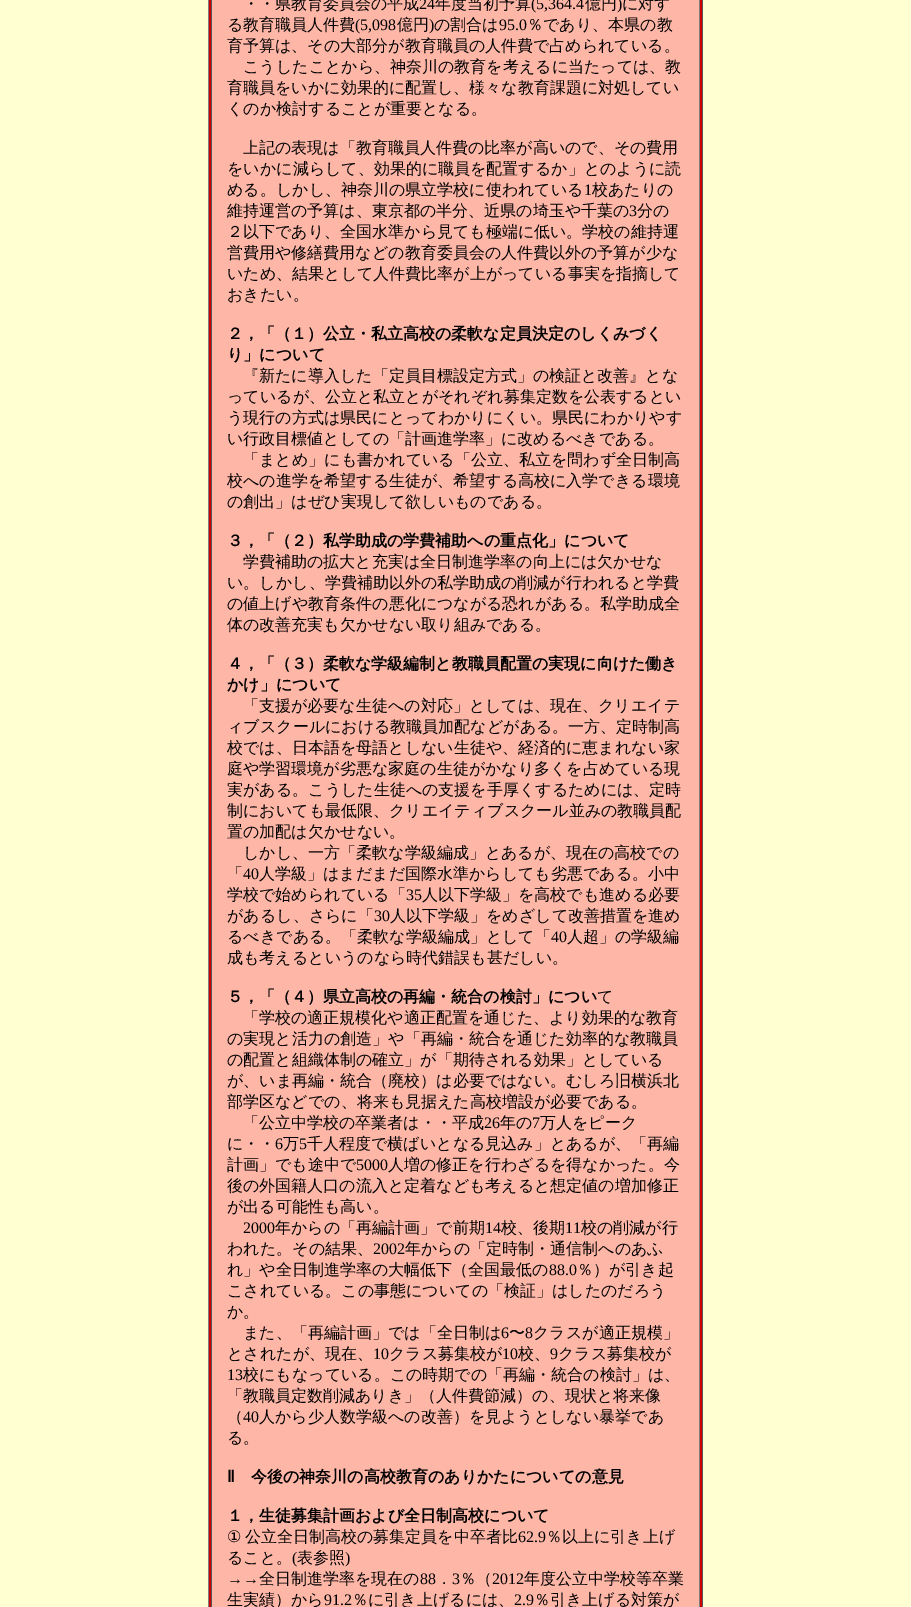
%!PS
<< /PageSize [911 1607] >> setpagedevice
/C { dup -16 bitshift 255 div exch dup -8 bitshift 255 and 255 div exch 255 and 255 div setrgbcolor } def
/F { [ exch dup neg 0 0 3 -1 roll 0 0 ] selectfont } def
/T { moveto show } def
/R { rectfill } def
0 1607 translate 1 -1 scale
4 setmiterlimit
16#FFFFD2 C
0 0 911 1607 R
16#CC0000 C
209 0 493 1607 R
16#555555 C
702 0 1 1607 R
16#808080 C
208 0 1 1607 R
16#FEB6A7 C
212 0 487 1607 R
16#808080 C
699 0 1 1607 R
16#555555 C
211 0 1 1607 R
/WenQuanYiZenHei-Medium 16 F
16#000000 C
(・・県教育委員会の平成) 243 9 T
/LiberationSerif-Regular 16 F
(24) 419 9 T
/WenQuanYiZenHei-Medium 16 F
(年度当初予算) 435 9 T
/LiberationSerif-Regular 16 F
(\(5,364.4) 531 9 T
/WenQuanYiZenHei-Medium 16 F
(億円) 585 9 T
/LiberationSerif-Regular 16 F
(\)) 617 9 T
/WenQuanYiZenHei-Medium 16 F
(に対す) 622 9 T
(る教育職員人件費) 227 30 T
/LiberationSerif-Regular 16 F
(\(5,098) 355 30 T
/WenQuanYiZenHei-Medium 16 F
(億円) 397 30 T
/LiberationSerif-Regular 16 F
(\)) 429 30 T
/WenQuanYiZenHei-Medium 16 F
(の割合は) 434 30 T
/LiberationSerif-Regular 16 F
(95.0) 499 30 T
/WenQuanYiZenHei-Medium 16 F
(％であり、本県の教) 527 30 T
(育予算は、その大部分が教育職員の人件費で占められている。) 227 51 T
(こうしたことから、神奈川の教育を考えるに当たっては、教) 243 72 T
(育職員をいかに効果的に配置し、様々な教育課題に対処してい) 227 93 T
(くのか検討することが重要となる。) 227 114 T
(上記の表現は「教育職員人件費の比率が高いので、その費用) 243 153 T
(をいかに減らして、効果的に職員を配置するか」とのように読) 227 174 T
(める。しかし、神奈川の県立学校に使われている) 227 195 T
/LiberationSerif-Regular 16 F
(1) 584 195 T
/WenQuanYiZenHei-Medium 16 F
(校あたりの) 592 195 T
(維持運営の予算は、東京都の半分、近県の埼玉や千葉の) 227 216 T
/LiberationSerif-Regular 16 F
(3) 629 216 T
/WenQuanYiZenHei-Medium 16 F
(分の) 637 216 T
(２以下であり、全国水準から見ても極端に低い。学校の維持運) 227 237 T
(営費用や修繕費用などの教育委員会の人件費以外の予算が少な) 227 258 T
(いため、結果として人件費比率が上がっている事実を指摘して) 227 279 T
(おきたい。) 227 300 T
/WenQuanYiZenHei-Bold 16 F
(２，「（１）公立・私立高校の柔軟な定員決定のしくみづく) 227 339 T
(り」について) 227 360 T
/WenQuanYiZenHei-Medium 16 F
(『新たに導入した「定員目標設定方式」の検証と改善』とな) 243 381 T
(っているが、公立と私立とがそれぞれ募集定数を公表するとい) 227 402 T
(う現行の方式は県民にとってわかりにくい。県民にわかりやす) 227 423 T
(い行政目標値としての「計画進学率」に改めるべきである。) 227 444 T
(「まとめ」にも書かれている「公立、私立を問わず全日制高) 243 465 T
(校への進学を希望する生徒が、希望する高校に入学できる環境) 227 486 T
(の創出」はぜひ実現して欲しいものである。) 227 507 T
/WenQuanYiZenHei-Bold 16 F
(３，「（２）私学助成の学費補助への重点化」について) 227 546 T
/WenQuanYiZenHei-Medium 16 F
(学費補助の拡大と充実は全日制進学率の向上には欠かせな) 243 567 T
(い。しかし、学費補助以外の私学助成の削減が行われると学費) 227 588 T
(の値上げや教育条件の悪化につながる恐れがある。私学助成全) 227 609 T
(体の改善充実も欠かせない取り組みである。) 227 630 T
/WenQuanYiZenHei-Bold 16 F
(４，「（３）柔軟な学級編制と教職員配置の実現に向けた働き) 227 669 T
(かけ」について) 227 690 T
/WenQuanYiZenHei-Medium 16 F
(「支援が必要な生徒への対応」としては、現在、クリエイテ) 243 711 T
(ィブスクールにおける教職員加配などがある。一方、定時制高) 227 732 T
(校では、日本語を母語としない生徒や、経済的に恵まれない家) 227 753 T
(庭や学習環境が劣悪な家庭の生徒がかなり多くを占めている現) 227 774 T
(実がある。こうした生徒への支援を手厚くするためには、定時) 227 795 T
(制においても最低限、クリエイティブスクール並みの教職員配) 227 816 T
(置の加配は欠かせない。) 227 837 T
(しかし、一方「柔軟な学級編成」とあるが、現在の高校での) 243 858 T
(「) 227 879 T
/LiberationSerif-Regular 16 F
(40) 243 879 T
/WenQuanYiZenHei-Medium 16 F
(人学級」はまだまだ国際水準からしても劣悪である。小中) 259 879 T
(学校で始められている「) 227 900 T
/LiberationSerif-Regular 16 F
(35) 406 900 T
/WenQuanYiZenHei-Medium 16 F
(人以下学級」を高校でも進める必要) 422 900 T
(があるし、さらに「) 227 921 T
/LiberationSerif-Regular 16 F
(30) 374 921 T
/WenQuanYiZenHei-Medium 16 F
(人以下学級」をめざして改善措置を進め) 390 921 T
(るべきである。「柔軟な学級編成」として「) 227 942 T
/LiberationSerif-Regular 16 F
(40) 551 942 T
/WenQuanYiZenHei-Medium 16 F
(人超」の学級編) 567 942 T
(成も考えるというのなら時代錯誤も甚だしい。) 227 963 T
/WenQuanYiZenHei-Bold 16 F
(５，「（４）県立高校の再編・統合の検討」につい) 227 1002 T
/WenQuanYiZenHei-Medium 16 F
(て) 597 1002 T
(「学校の適正規模化や適正配置を通じた、より効果的な教育) 243 1023 T
(の実現と活力の創造」や「再編・統合を通じた効率的な教職員) 227 1044 T
(の配置と組織体制の確立」が「期待される効果」としている) 227 1065 T
(が、いま再編・統合（廃校）は必要ではない。むしろ旧横浜北) 227 1086 T
(部学区などでの、将来も見据えた高校増設が必要である。) 227 1107 T
(「公立中学校の卒業者は・・平成) 243 1128 T
/LiberationSerif-Regular 16 F
(26) 484 1128 T
/WenQuanYiZenHei-Medium 16 F
(年の) 500 1128 T
/LiberationSerif-Regular 16 F
(7) 532 1128 T
/WenQuanYiZenHei-Medium 16 F
(万人をピーク) 540 1128 T
(に・・) 227 1149 T
/LiberationSerif-Regular 16 F
(6) 275 1149 T
/WenQuanYiZenHei-Medium 16 F
(万) 283 1149 T
/LiberationSerif-Regular 16 F
(5) 299 1149 T
/WenQuanYiZenHei-Medium 16 F
(千人程度で横ばいとなる見込み」とあるが、「再編) 307 1149 T
(計画」でも途中で) 227 1170 T
/LiberationSerif-Regular 16 F
(5000) 356 1170 T
/WenQuanYiZenHei-Medium 16 F
(人増の修正を行わざるを得なかった。今) 388 1170 T
(後の外国籍人口の流入と定着なども考えると想定値の増加修正) 227 1191 T
(が出る可能性も高い。) 227 1212 T
/LiberationSerif-Regular 16 F
(2000) 243 1233 T
/WenQuanYiZenHei-Medium 16 F
(年からの「再編計画」で前期) 275 1233 T
/LiberationSerif-Regular 16 F
(14) 485 1233 T
/WenQuanYiZenHei-Medium 16 F
(校、後期) 501 1233 T
/LiberationSerif-Regular 16 F
(11) 565 1233 T
/WenQuanYiZenHei-Medium 16 F
(校の削減が行) 581 1233 T
(われた。その結果、) 227 1254 T
/LiberationSerif-Regular 16 F
(2002) 373 1254 T
/WenQuanYiZenHei-Medium 16 F
(年からの「定時制・通信制へのあふ) 405 1254 T
(れ」や全日制進学率の大幅低下（全国最低の) 227 1275 T
/LiberationSerif-Regular 16 F
(88.0) 549 1275 T
/WenQuanYiZenHei-Medium 16 F
(％）が引き起) 577 1275 T
(こされている。この事態についての「検証」はしたのだろう) 227 1296 T
(か。) 227 1317 T
(また、「再編計画」では「全日制は) 243 1338 T
/LiberationSerif-Regular 16 F
(6) 501 1338 T
/WenQuanYiZenHei-Medium 16 F
(〜) 509 1338 T
/LiberationSerif-Regular 16 F
(8) 525 1338 T
/WenQuanYiZenHei-Medium 16 F
(クラスが適正規模」) 533 1338 T
(とされたが、現在、) 227 1359 T
/LiberationSerif-Regular 16 F
(10) 373 1359 T
/WenQuanYiZenHei-Medium 16 F
(クラス募集校が) 389 1359 T
/LiberationSerif-Regular 16 F
(10) 502 1359 T
/WenQuanYiZenHei-Medium 16 F
(校、) 518 1359 T
/LiberationSerif-Regular 16 F
(9) 550 1359 T
/WenQuanYiZenHei-Medium 16 F
(クラス募集校が) 558 1359 T
/LiberationSerif-Regular 16 F
(13) 227 1380 T
/WenQuanYiZenHei-Medium 16 F
(校にもなっている。この時期での「再編・統合の検討」は、) 243 1380 T
(「教職員定数削減ありき」（人件費節減）の、現状と将来像) 227 1401 T
(（) 227 1422 T
/LiberationSerif-Regular 16 F
(40) 243 1422 T
/WenQuanYiZenHei-Medium 16 F
(人から少人数学級への改善）を見ようとしない暴挙であ) 259 1422 T
(る。) 227 1443 T
/DejaVuSans-Bold 16 F
(Ⅱ) 227 1482 T
/WenQuanYiZenHei-Bold 16 F
(今後の神奈川の高校教育のありかたについての意見) 251 1482 T
(１，生徒募集計画および全日制高校について) 227 1521 T
/DejaVuSans-Regular 16 F
(①) 227 1542 T
/WenQuanYiZenHei-Medium 16 F
(公立全日制高校の募集定員を中卒者比) 245 1542 T
/LiberationSerif-Regular 16 F
(62.9) 518 1542 T
/WenQuanYiZenHei-Medium 16 F
(％以上に引き上げ) 546 1542 T
(ること。) 227 1563 T
/LiberationSerif-Regular 16 F
(\() 292 1563 T
/WenQuanYiZenHei-Medium 16 F
(表参照) 297 1563 T
/LiberationSerif-Regular 16 F
(\)) 345 1563 T
(→→) 227 1584 T
/WenQuanYiZenHei-Medium 16 F
(全日制進学率を現在の) 259 1584 T
/LiberationSerif-Regular 16 F
(88) 420 1584 T
/WenQuanYiZenHei-Medium 16 F
(．) 436 1584 T
/LiberationSerif-Regular 16 F
(3) 452 1584 T
/WenQuanYiZenHei-Medium 16 F
(％（) 460 1584 T
/LiberationSerif-Regular 16 F
(2012) 492 1584 T
/WenQuanYiZenHei-Medium 16 F
(年度公立中学校等卒業) 524 1584 T
(生実績）から) 227 1605 T
/LiberationSerif-Regular 16 F
(91.2) 324 1605 T
/WenQuanYiZenHei-Medium 16 F
(％に引き上げるには、) 352 1605 T
/LiberationSerif-Regular 16 F
(2.9) 514 1605 T
/WenQuanYiZenHei-Medium 16 F
(％引き上げる対策が) 534 1605 T
showpage
